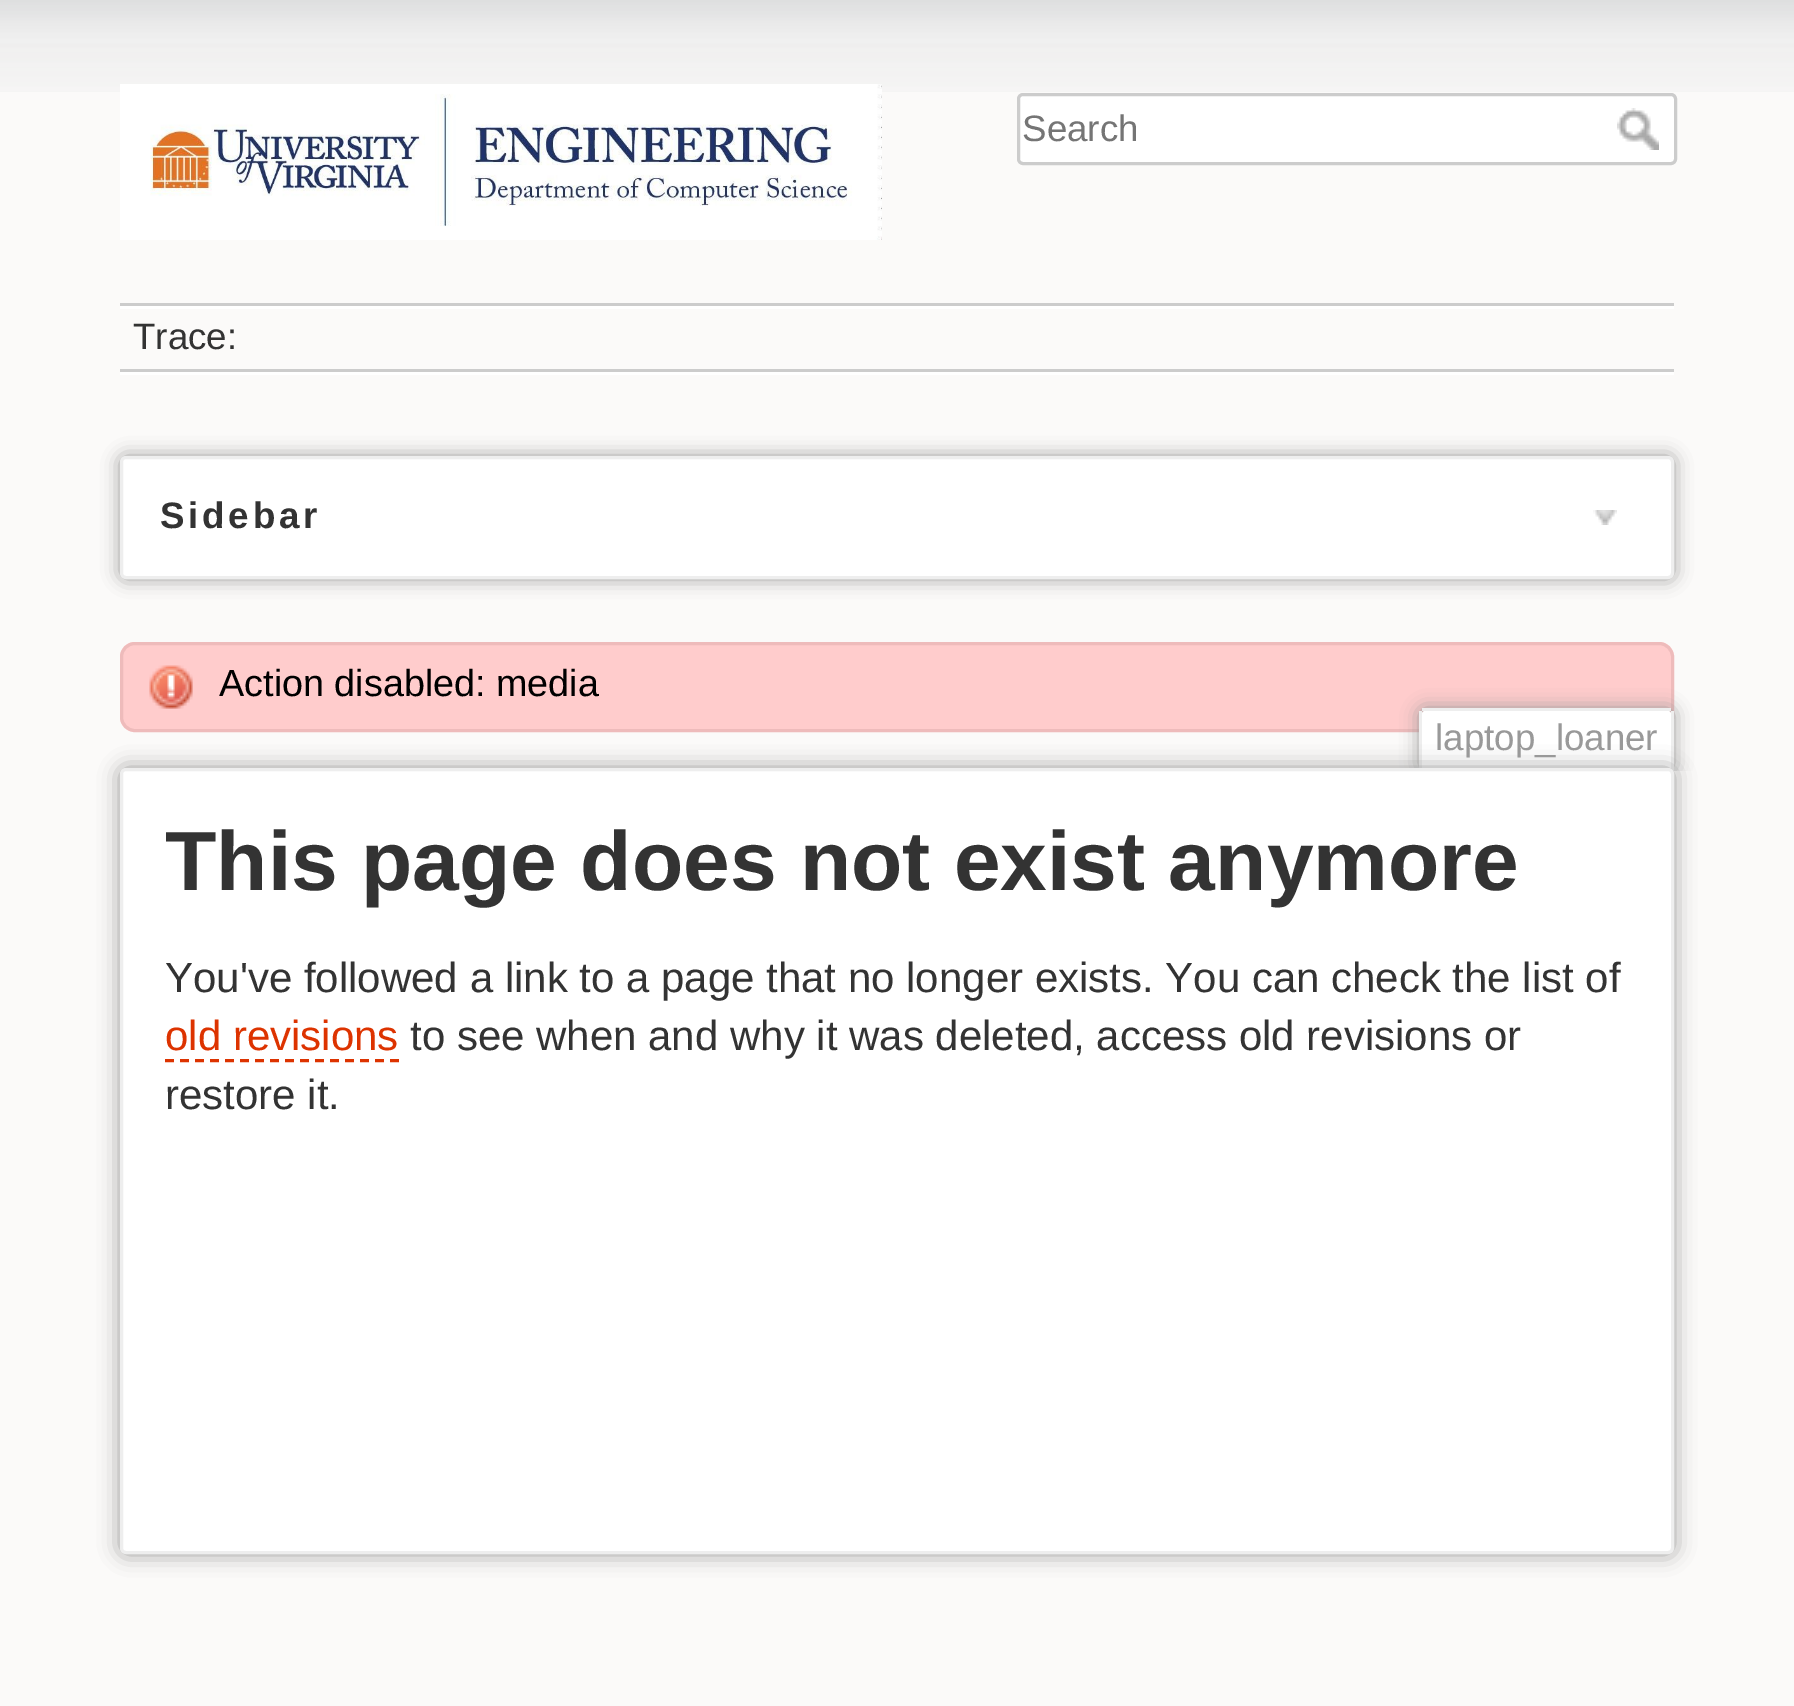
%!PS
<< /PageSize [1794 1706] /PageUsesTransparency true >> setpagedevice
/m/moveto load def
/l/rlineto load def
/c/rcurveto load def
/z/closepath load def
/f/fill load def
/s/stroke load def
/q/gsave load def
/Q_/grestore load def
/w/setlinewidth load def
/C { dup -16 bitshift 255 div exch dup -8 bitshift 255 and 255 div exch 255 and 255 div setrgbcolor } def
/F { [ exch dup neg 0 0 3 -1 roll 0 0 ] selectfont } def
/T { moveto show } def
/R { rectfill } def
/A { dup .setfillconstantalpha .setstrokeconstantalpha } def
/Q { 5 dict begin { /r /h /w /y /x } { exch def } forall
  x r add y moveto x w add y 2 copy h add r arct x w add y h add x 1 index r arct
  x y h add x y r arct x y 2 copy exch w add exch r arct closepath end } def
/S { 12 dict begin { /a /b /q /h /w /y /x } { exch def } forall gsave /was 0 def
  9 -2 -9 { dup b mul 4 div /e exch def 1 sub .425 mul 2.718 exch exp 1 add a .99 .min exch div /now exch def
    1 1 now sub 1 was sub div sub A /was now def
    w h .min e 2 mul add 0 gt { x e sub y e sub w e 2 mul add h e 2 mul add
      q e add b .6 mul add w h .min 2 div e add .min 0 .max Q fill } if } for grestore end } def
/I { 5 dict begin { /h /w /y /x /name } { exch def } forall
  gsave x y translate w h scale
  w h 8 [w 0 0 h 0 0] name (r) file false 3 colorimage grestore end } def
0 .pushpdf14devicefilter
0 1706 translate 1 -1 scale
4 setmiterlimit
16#FBFAF9 C
0 0 1794 1706 R
(1.rgb) 0 0 1794 92 I
(2.rgb) 120 84 762 156 I
16#FFFFFF C
1018.5 94.5 657 69 4.5 Q q f Q_
16#CCCCCC C
3 w
s
/LiberationSans-Regular 36.75 F
16#757575 C
(Search) 1022 141 T
(3.rgb) 1617 108 42 42 I
16#CCCCCC C
120 303 1554 3 R
16#FFFFFF C
120 372 1554 3 R
120 306 1554 3 R
16#CCCCCC C
120 369 1554 3 R
16#333333 C
(Trace:) 133 349 T
16#999999 C
120 456 1554 123 6 9 1 S
16#FFFFFF C
121.5 457.5 1551 120 4.5 Q q f Q_
16#EEEEEE C
s
/LiberationSans-Bold 36.75 F
16#333333 C
160 528 m 3.75 0 (Sidebar) ashow
(4.rgb) 1593 510 24 15 I
16#FFCCCC C
120 642 1554 90 15 Q f
(5.rgb) 149 665 44 44 I
16#EEBBBB C
121.5 643.5 1551 87 13.5 Q s
/LiberationSans-Regular 37.75 F
16#000000 C
(Action disabled: media) 219 696 T
q
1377 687 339 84 rectclip
16#999999 C
1419 708 255 63 6 9 1 S
Q_
16#FFFFFF C
1425 711 m 243 0 l 1.5 0 3 1.5 3 3 c 0 57 l -249 0 l 0 -57 l 0 -1.5 1.5 -3 3 -3 c z f
16#EEEEEE C
1422 708 249 3 R
1671 711 3 60 R
1419 711 3 60 R
/LiberationSans-Regular 36.75 F
16#999999 C
(laptop_loaner) 1435 750 T
120 768 1554 786 6 10.5 1 S
16#FFFFFF C
121.5 769.5 1551 783 4.5 Q q f Q_
16#EEEEEE C
s
/LiberationSans-Bold 84 F
16#333333 C
(This page does not exist anymore) 165 890 T
/LiberationSans-Regular 42 F
(You've followed a link to a page that no longer exists. You can check the list of) 165 992 T
16#DD3300 C
(old revisions) 165 1050 T
[9 6] 0 setdash
165 1060.5 m 234 0 l s
16#333333 C
(to see when and why it was deleted, access old revisions or) 410 1050 T
(restore it.) 165 1109 T
.poppdf14devicefilter showpage
